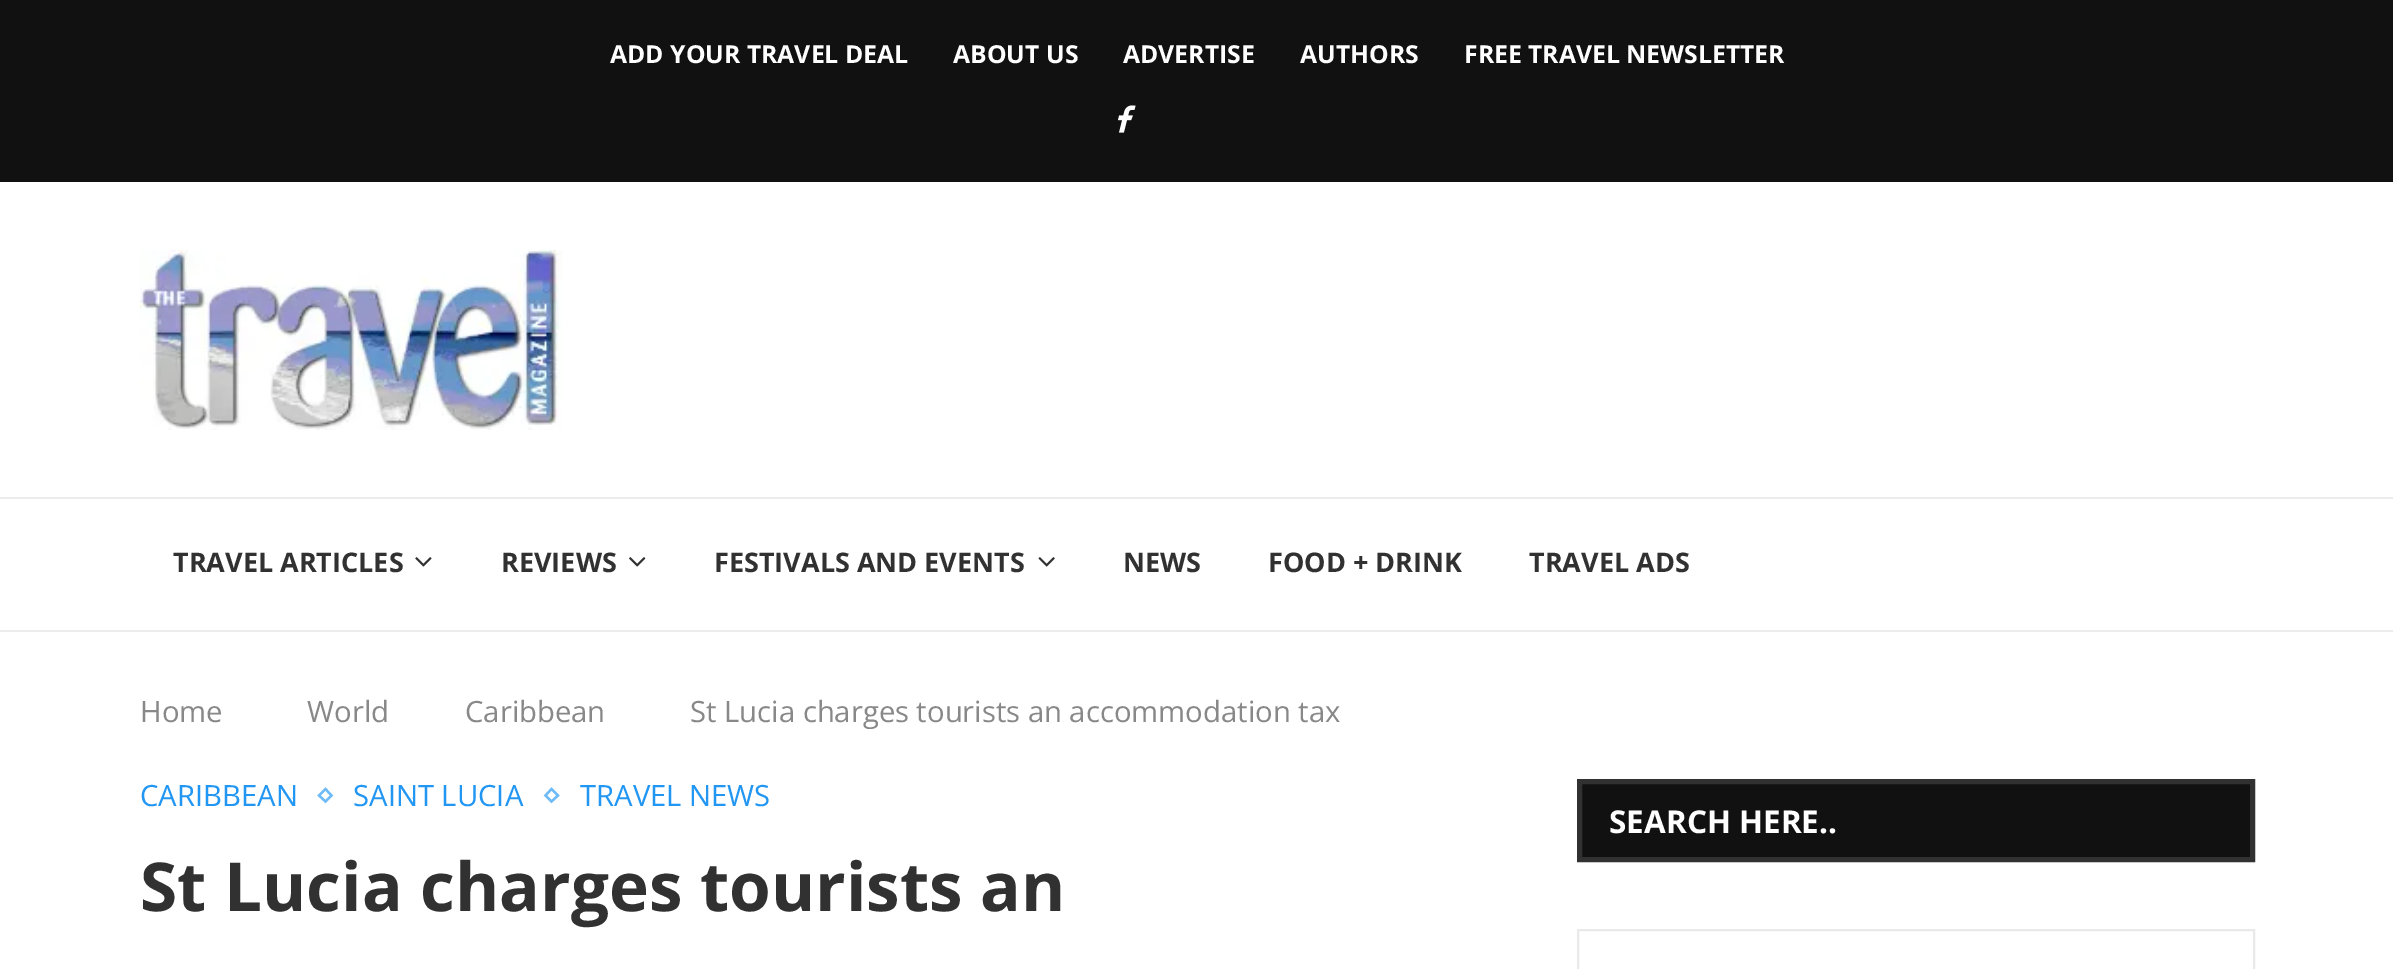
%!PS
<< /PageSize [2393 969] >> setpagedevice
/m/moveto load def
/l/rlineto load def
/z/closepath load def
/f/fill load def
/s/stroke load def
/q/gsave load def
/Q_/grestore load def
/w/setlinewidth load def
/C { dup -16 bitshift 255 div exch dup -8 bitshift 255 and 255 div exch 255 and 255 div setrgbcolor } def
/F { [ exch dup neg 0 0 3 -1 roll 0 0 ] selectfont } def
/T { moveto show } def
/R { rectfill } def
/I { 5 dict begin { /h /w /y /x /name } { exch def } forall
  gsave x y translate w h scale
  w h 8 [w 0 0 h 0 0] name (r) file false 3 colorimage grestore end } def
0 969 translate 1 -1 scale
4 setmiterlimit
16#FFFFFF C
0 0 2393 969 R
16#111111 C
0 0 2393 182 R
/OpenSans-Bold 24.75 F
16#FFFFFF C
(ADD YOUR TRAVEL DEAL) 610 63 T
(ABOUT US) 953 63 T
(ADVERTISE) 1123 63 T
(AUTHORS) 1300 63 T
(FREE TRAVEL NEWSLETTER) 1464 63 T
(1.rgb) 1118 105 18 28 I
(2.rgb) 139 249 424 181 I
16#ECECEC C
0 497 2393 2 R
0 630 2393 2 R
/OpenSans-Bold 27 F
16#313131 C
(TRAVEL ARTICLES) 173 572 T
(3.rgb) 415 557 17 10 I
(REVIEWS) 501 572 T
(4.rgb) 629 557 17 10 I
(FESTIVALS AND EVENTS) 714 572 T
(5.rgb) 1038 557 17 10 I
(NEWS) 1123 572 T
(FOOD + DRINK) 1268 572 T
(TRAVEL ADS) 1529 572 T
/OpenSans-Regular 29.25 F
16#888888 C
(Home) 140 722 T
(World) 307 722 T
(Caribbean) 465 722 T
(St Lucia charges tourists an accommodation tax) 690 722 T
16#2196F3 C
(CARIBBEAN) 140 806 T
16#6FBBF7 C
2.3 w
325.5 789 m 6 6.5 l -6 6 l -6.5 -6 l z s
16#2196F3 C
(SAINT LUCIA) 353 806 T
16#6FBBF7 C
551.5 789 m 6.5 6.5 l -6.5 6 l -6 -6 l z s
16#2196F3 C
(TRAVEL NEWS) 580 806 T
/OpenSans-Bold 67.5 F
16#313131 C
(St Lucia charges tourists an) 140 911 T
16#111111 C
1579.5 781.5 m 673 0 l 0 78 l -673 0 l z q f Q_
16#313131 C
5 w
s
/OpenSans-Bold 31.5 F
16#FFFFFF C
(SEARCH HERE..) 1609 833 T
16#E9E9E9 C
2 w
1578 930 676 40 rectstroke
showpage
